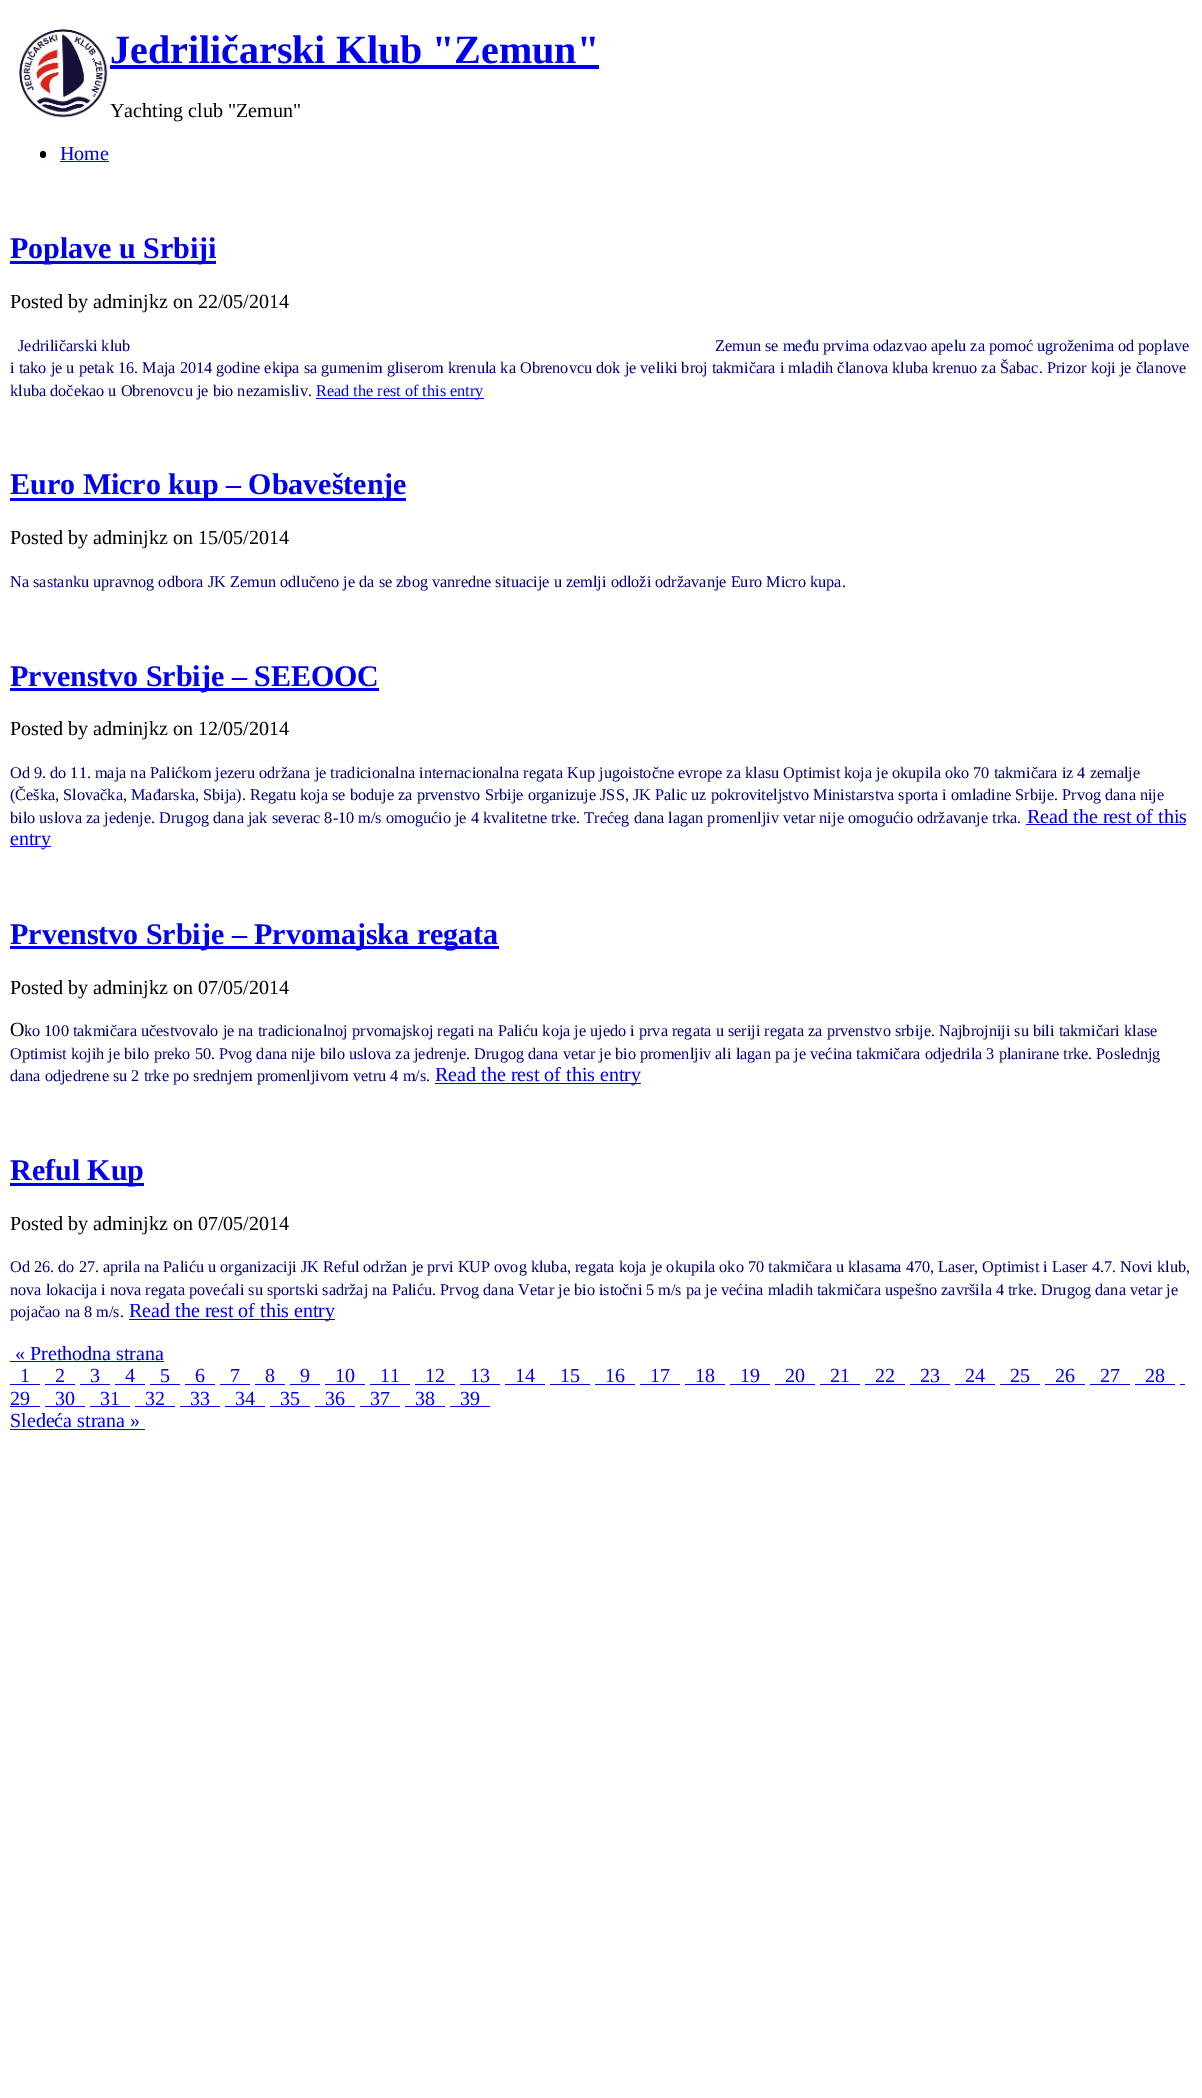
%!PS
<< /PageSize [1202 2098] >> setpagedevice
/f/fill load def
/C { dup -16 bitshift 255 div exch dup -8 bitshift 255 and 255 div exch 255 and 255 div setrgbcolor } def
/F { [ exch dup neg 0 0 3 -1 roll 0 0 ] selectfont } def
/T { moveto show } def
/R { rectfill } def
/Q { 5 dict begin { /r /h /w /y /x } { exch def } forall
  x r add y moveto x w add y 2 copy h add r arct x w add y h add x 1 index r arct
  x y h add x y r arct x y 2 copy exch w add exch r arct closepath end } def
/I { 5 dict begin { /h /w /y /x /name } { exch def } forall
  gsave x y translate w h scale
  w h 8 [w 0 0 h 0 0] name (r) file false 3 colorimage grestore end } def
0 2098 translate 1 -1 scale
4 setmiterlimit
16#FFFFFF C
0 0 1202 2098 R
(1.rgb) 19 29 89 89 I
/LiberationSerif-Bold 40 F
16#0000EE C
(Jedriličarski Klub "Zemun") 110 63 T
110 65 489 4 R
/LiberationSerif-Regular 20 F
16#000000 C
(Yachting club "Zemun") 110 117 T
40 151 6 7 3 Q f
16#0000EE C
(Home) 60 160 T
60 161 49 1 R
10 261 206 3 R
/LiberationSerif-Bold 30 F
(Poplave u Srbiji) 10 258 T
/LiberationSerif-Regular 20 F
16#000000 C
(Posted by adminjkz on 22/05/2014) 10 308 T
/LiberationSerif-Regular 16.25 F
16#000080 C
(Jedriličarski klub) 18 351 T
(Zemun se među prvima odazvao apelu za pomoć ugroženima od poplave) 715 351 T
(i tako je u petak 16. Maja 2014 godine ekipa sa gumenim gliserom krenula ka Obrenovcu dok je veliki broj takmičara i mladih članova kluba krenuo za Šabac. Prizor koji je članove) 10 373 T
(kluba dočekao u Obrenovcu je bio nezamisliv.) 10 396 T
16#0000EE C
316 398 168 1 R
(Read the rest of this entry) 316 396 T
10 498 396 3 R
/LiberationSerif-Bold 30 F
(Euro Micro kup – Obaveštenje) 10 494 T
/LiberationSerif-Regular 20 F
16#000000 C
(Posted by adminjkz on 15/05/2014) 10 544 T
/LiberationSerif-Regular 16.25 F
16#000080 C
(Na sastanku upravnog odbora JK Zemun odlučeno je da se zbog vanredne situacije u zemlji odloži održavanje Euro Micro kupa.) 10 587 T
16#0000EE C
10 688 369 3 R
/LiberationSerif-Bold 30 F
(Prvenstvo Srbije – SEEOOC) 10 686 T
/LiberationSerif-Regular 20 F
16#000000 C
(Posted by adminjkz on 12/05/2014) 10 735 T
/LiberationSerif-Regular 16.25 F
16#000080 C
(Od 9. do 11. maja na Palićkom jezeru održana je tradicionalna internacionalna regata Kup jugoistočne evrope za klasu Optimist koja je okupila oko 70 takmičara iz 4 zemalje) 10 778 T
(\(Češka, Slovačka, Mađarska, Sbija\). Regatu koja se boduje za prvenstvo Srbije organizuje JSS, JK Palic uz pokroviteljstvo Ministarstva sporta i omladine Srbije. Prvog dana nije) 10 800 T
(bilo uslova za jedenje. Drugog dana jak severac 8-10 m/s omogućio je 4 kvalitetne trke. Trećeg dana lagan promenljiv vetar nije omogućio održavanje trka.) 10 823 T
/LiberationSerif-Regular 20 F
16#0000EE C
(Read the rest of this) 1027 823 T
1026 824 160 1 R
10 846 41 1 R
(entry) 10 845 T
10 946 489 3 R
/LiberationSerif-Bold 30 F
(Prvenstvo Srbije – Prvomajska regata) 10 944 T
/LiberationSerif-Regular 20 F
16#000000 C
(Posted by adminjkz on 07/05/2014) 10 994 T
(O) 10 1036 T
/LiberationSerif-Regular 16.25 F
16#000080 C
(ko 100 takmičara učestvovalo je na tradicionalnoj prvomajskoj regati na Paliću koja je ujedo i prva regata u seriji regata za prvenstvo srbije. Najbrojniji su bili takmičari klase) 24 1036 T
(Optimist kojih je bilo preko 50. Pvog dana nije bilo uslova za jedrenje. Drugog dana vetar je bio promenljiv ali lagan pa je većina takmičara odjedrila 3 planirane trke. Poslednjg) 10 1059 T
(dana odjedrene su 2 trke po srednjem promenljivom vetru 4 m/s.) 10 1081 T
16#0000EE C
435 1083 206 1 R
/LiberationSerif-Regular 20 F
(Read the rest of this entry) 435 1081 T
10 1183 134 3 R
/LiberationSerif-Bold 30 F
(Reful Kup) 10 1180 T
/LiberationSerif-Regular 20 F
16#000000 C
(Posted by adminjkz on 07/05/2014) 10 1230 T
/LiberationSerif-Regular 16.25 F
16#000080 C
(Od 26. do 27. aprila na Paliću u organizaciji JK Reful održan je prvi KUP ovog kluba, regata koja je okupila oko 70 takmičara u klasama 470, Laser, Optimist i Laser 4.7. Novi klub,) 10 1272 T
(nova lokacija i nova regata povećali su sportski sadržaj na Paliću. Prvog dana Vetar je bio istočni 5 m/s pa je većina mladih takmičara uspešno završila 4 trke. Drugog dana vetar je) 10 1295 T
(pojačao na 8 m/s.) 10 1317 T
16#0000EE C
129 1319 206 1 R
/LiberationSerif-Regular 20 F
(Read the rest of this entry) 129 1317 T
(« Prethodna strana) 15 1360 T
10 1361 154 1 R
(1) 20 1382 T
10 1384 30 1 R
(2) 55 1382 T
45 1384 30 1 R
(3) 90 1382 T
80 1384 30 1 R
(4) 125 1382 T
115 1384 30 1 R
(5) 160 1382 T
150 1384 30 1 R
(6) 195 1382 T
185 1384 30 1 R
(7) 230 1382 T
220 1384 30 1 R
(8) 265 1382 T
255 1384 30 1 R
(9) 300 1382 T
290 1384 30 1 R
(10) 335 1382 T
325 1384 40 1 R
(11) 380 1382 T
370 1384 40 1 R
(12) 425 1382 T
415 1384 40 1 R
(13) 470 1382 T
460 1384 40 1 R
(14) 515 1382 T
505 1384 40 1 R
(15) 560 1382 T
550 1384 40 1 R
(16) 605 1382 T
595 1384 40 1 R
(17) 650 1382 T
640 1384 40 1 R
(18) 695 1382 T
685 1384 40 1 R
(19) 740 1382 T
730 1384 40 1 R
(20) 785 1382 T
775 1384 40 1 R
(21) 830 1382 T
820 1384 40 1 R
(22) 875 1382 T
865 1384 40 1 R
(23) 920 1382 T
910 1384 40 1 R
(24) 965 1382 T
955 1384 40 1 R
(25) 1010 1382 T
1000 1384 40 1 R
(26) 1055 1382 T
1045 1384 40 1 R
(27) 1100 1382 T
1090 1384 40 1 R
(28) 1145 1382 T
1135 1384 40 1 R
(29) 10 1405 T
1180 1384 5 1 R
10 1406 30 1 R
(30) 55 1405 T
45 1406 40 1 R
(31) 100 1405 T
90 1406 40 1 R
(32) 145 1405 T
135 1406 40 1 R
(33) 190 1405 T
180 1406 40 1 R
(34) 235 1405 T
225 1406 40 1 R
(35) 280 1405 T
270 1406 40 1 R
(36) 325 1405 T
315 1406 40 1 R
(37) 370 1405 T
360 1406 40 1 R
(38) 415 1405 T
405 1406 40 1 R
(39) 460 1405 T
450 1406 40 1 R
(Sledeća strana ») 10 1427 T
10 1429 135 1 R
showpage
